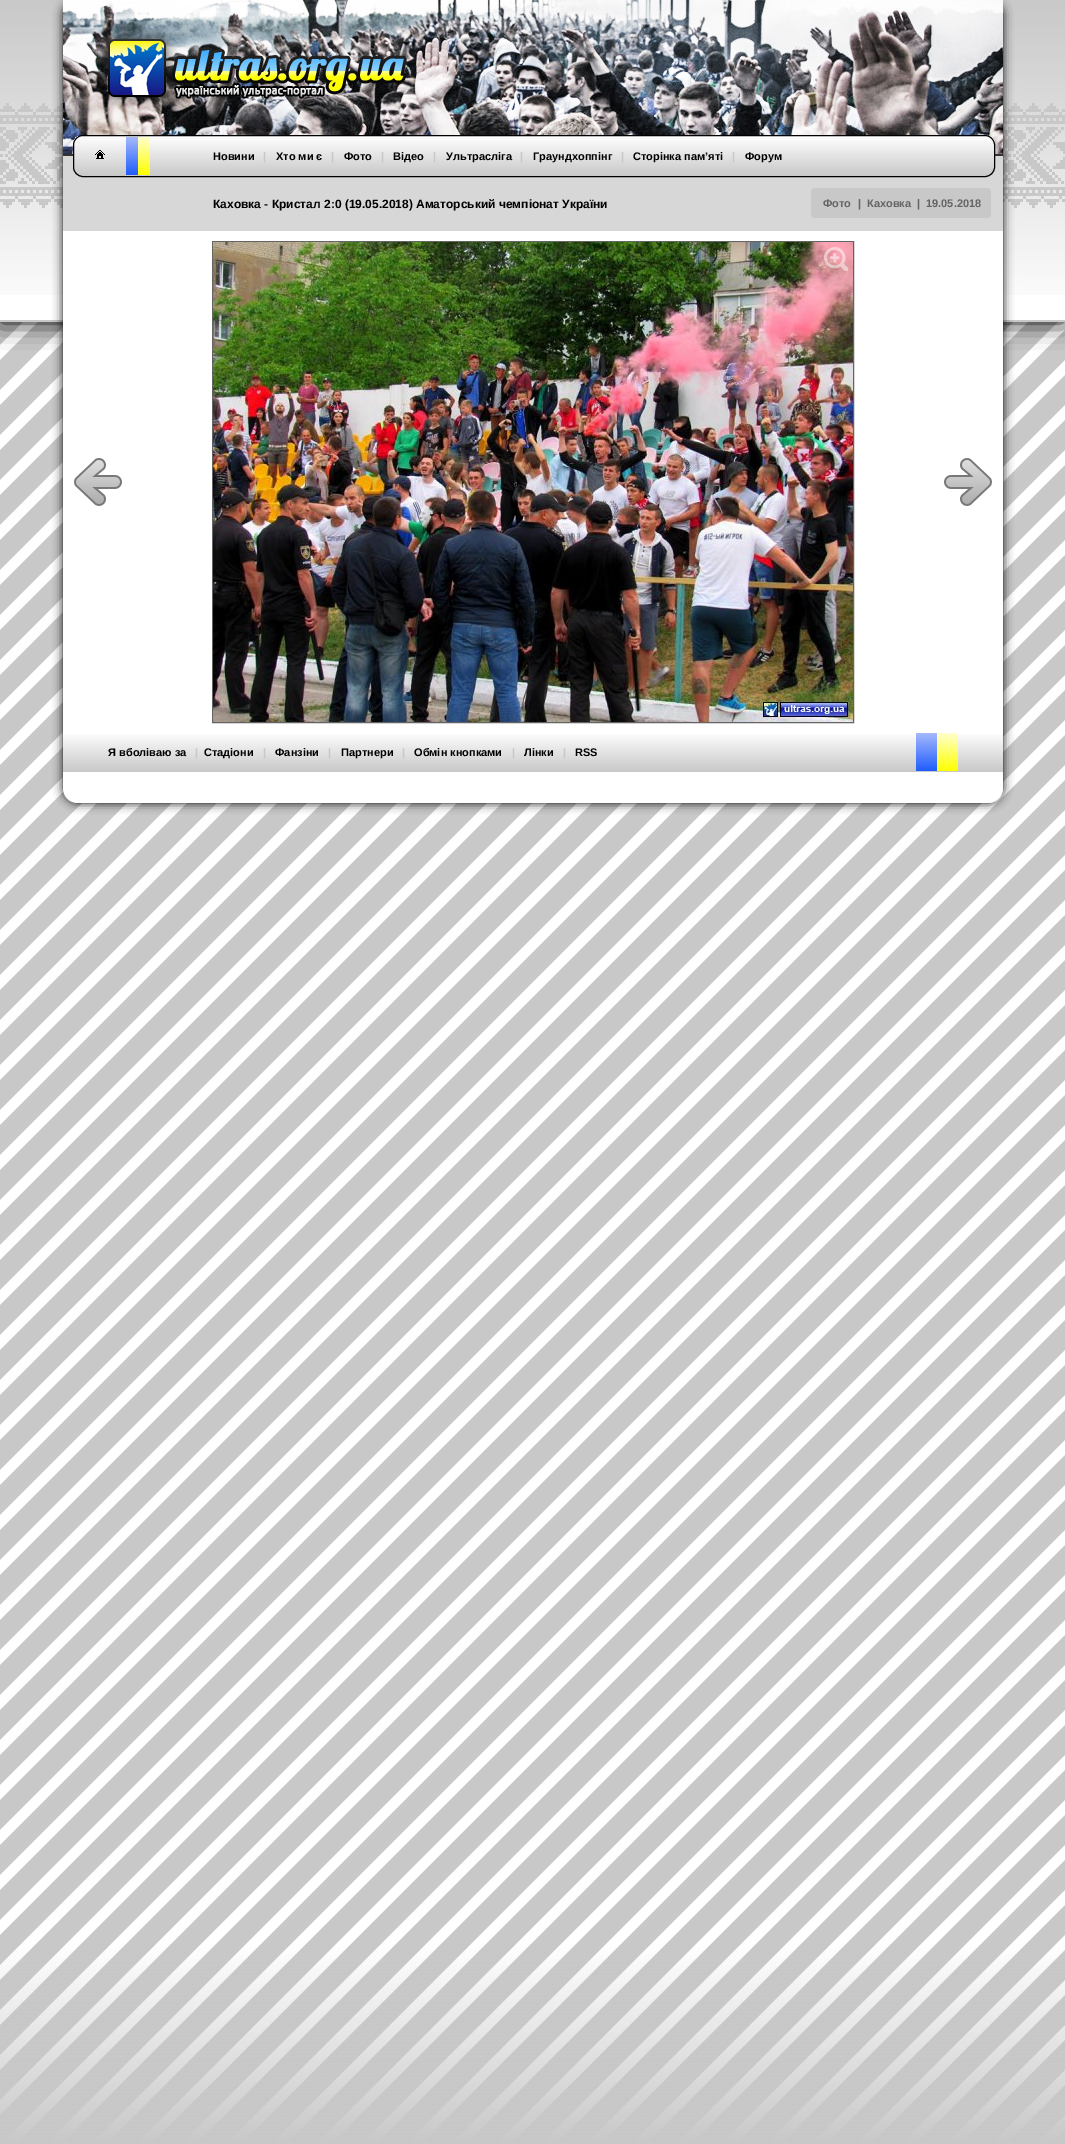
%!PS
<< /PageSize [1065 2144] /PageUsesTransparency true >> setpagedevice
/m/moveto load def
/l/rlineto load def
/c/rcurveto load def
/z/closepath load def
/f/fill load def
/s/stroke load def
/q/gsave load def
/Q_/grestore load def
/C { dup -16 bitshift 255 div exch dup -8 bitshift 255 and 255 div exch 255 and 255 div setrgbcolor } def
/F { [ exch dup neg 0 0 3 -1 roll 0 0 ] selectfont } def
/T { moveto show } def
/R { rectfill } def
/A { dup .setfillconstantalpha .setstrokeconstantalpha } def
/Q { 5 dict begin { /r /h /w /y /x } { exch def } forall
  x r add y moveto x w add y 2 copy h add r arct x w add y h add x 1 index r arct
  x y h add x y r arct x y 2 copy exch w add exch r arct closepath end } def
/S { 12 dict begin { /a /b /q /h /w /y /x } { exch def } forall gsave /was 0 def
  9 -2 -9 { dup b mul 4 div /e exch def 1 sub .425 mul 2.718 exch exp 1 add a .99 .min exch div /now exch def
    1 1 now sub 1 was sub div sub A /was now def
    w h .min e 2 mul add 0 gt { x e sub y e sub w e 2 mul add h e 2 mul add
      q e add b .6 mul add w h .min 2 div e add .min 0 .max Q fill } if } for grestore end } def
/I { 5 dict begin { /h /w /y /x /name } { exch def } forall
  gsave x y translate w h scale
  w h 8 [w 0 0 h 0 0] name (r) file false 3 colorimage grestore end } def
0 .pushpdf14devicefilter
0 2144 translate 1 -1 scale
4 setmiterlimit
16#FFFFFF C
0 0 1065 2144 R
(1.rgb) 0 322 1065 1822 I
16#000000 C
0 0 1065 322 0 12.5 1 S
16#FFFFFF C
0 295 1065 25 R
(2.rgb) 0 0 1065 295 I
16#C8C8C8 C
0 320 1065 2 R
16#000000 C
63 0 940 803 15 5 1 S
16#FFFFFF C
63 0 m 940 0 l 0 788 l 0 8.5 -6.5 15 -15 15 c -910 0 l -8.5 0 -15 -6.5 -15 -15 c z f
(3.rgb) 63 0 940 154 I
16#333333 C
63 154 940 2 R
(4.rgb) 97 28 310 80 I
16#D7D7D7 C
63 156 940 75 R
q
73 135 922 42 10 Q clip newpath
q 73 136 m 922 0 l 0 40 l -922 0 l z clip newpath
<< /ShadingType 2 /ColorSpace /DeviceRGB /Coords [534 176 534 136] /Extend [true true] /Function << /FunctionType 2 /Domain [0 1] /C0 [.784 .784 .784] /C1 [1 1 1] /N 1 >> >> shfill Q_
Q_
16#000000 C
73.5 135.5 921 41 9.5 Q s
(5.rgb) 95 150 10 9 I
q 126 137 m 12 0 l 0 38 l -12 0 l z clip newpath
<< /ShadingType 2 /ColorSpace /DeviceRGB /Coords [132 137 132 175] /Extend [true true] /Function << /FunctionType 2 /Domain [0 1] /C0 [.651 .725 .992] /C1 [.122 .365 .988] /N 1 >> >> shfill Q_
q 138 137 m 12 0 l 0 38 l -12 0 l z clip newpath
<< /ShadingType 2 /ColorSpace /DeviceRGB /Coords [144 137 144 175] /Extend [true true] /Function << /FunctionType 2 /Domain [0 1] /C0 [1 1 .8] /C1 [1 1 0] /N 1 >> >> shfill Q_
/LiberationSans-Bold 11 F
(Новини) 213 160 T
16#C8C8C8 C
(|) 263 160 T
16#000000 C
(Хто ми є) 276 160 T
16#C8C8C8 C
(|) 331 160 T
16#000000 C
(Фото) 344 160 T
16#C8C8C8 C
(|) 381 160 T
16#000000 C
(Відео) 393 160 T
16#C8C8C8 C
(|) 433 160 T
16#000000 C
(Ультрасліга) 446 160 T
16#C8C8C8 C
(|) 520 160 T
16#000000 C
(Граундхоппінг) 533 160 T
16#C8C8C8 C
(|) 621 160 T
16#000000 C
(Сторінка пам’яті) 633 160 T
16#C8C8C8 C
(|) 732 160 T
16#000000 C
(Форум) 745 160 T
(6.rgb) 74 458 48 48 I
16#646464 C
212.5 241.5 641 481 rectstroke
(7.rgb) 213 242 640 480 I
(8.rgb) 824 247 24 24 I
(9.rgb) 944 458 48 48 I
q 63 734 m 940 0 l 0 38 l -940 0 l z clip newpath
<< /ShadingType 2 /ColorSpace /DeviceRGB /Coords [533 772 533 732] /Extend [true true] /Function << /FunctionType 2 /Domain [0 1] /C0 [.784 .784 .784] /C1 [1 1 1] /N 1 >> >> shfill Q_
16#000000 C
(Я вболіваю за) 108 756 T
16#C8C8C8 C
(|) 195 756 T
16#000000 C
(Стадіони) 204 756 T
16#C8C8C8 C
(|) 263 756 T
16#000000 C
(Фанзіни) 275 756 T
16#C8C8C8 C
(|) 328 756 T
16#000000 C
(Партнери) 341 756 T
16#C8C8C8 C
(|) 402 756 T
16#000000 C
(Обмін кнопками) 414 756 T
16#C8C8C8 C
(|) 512 756 T
16#000000 C
(Лінки) 524 756 T
16#C8C8C8 C
(|) 563 756 T
16#000000 C
(RSS) 575 756 T
q 916 733 m 21 0 l 0 38 l -21 0 l z clip newpath
<< /ShadingType 2 /ColorSpace /DeviceRGB /Coords [927 733 927 771] /Extend [true true] /Function << /FunctionType 2 /Domain [0 1] /C0 [.651 .725 .992] /C1 [.122 .365 .988] /N 1 >> >> shfill Q_
q 937 733 m 21 0 l 0 38 l -21 0 l z clip newpath
<< /ShadingType 2 /ColorSpace /DeviceRGB /Coords [948 733 948 771] /Extend [true true] /Function << /FunctionType 2 /Domain [0 1] /C0 [1 1 .8] /C1 [1 1 0] /N 1 >> >> shfill Q_
/LiberationSans-Bold 12 F
(Каховка - Кристал 2:0 \(19.05.2018\) Аматорський чемпіонат України) 213 208 T
16#C8C8C8 C
811 188 180 30 4 Q f
/LiberationSans-Bold 11 F
16#646464 C
(Фото) 823 207 T
(|) 858 207 T
(Каховка) 867 207 T
(|) 917 207 T
(19.05.2018) 926 207 T
.poppdf14devicefilter showpage
